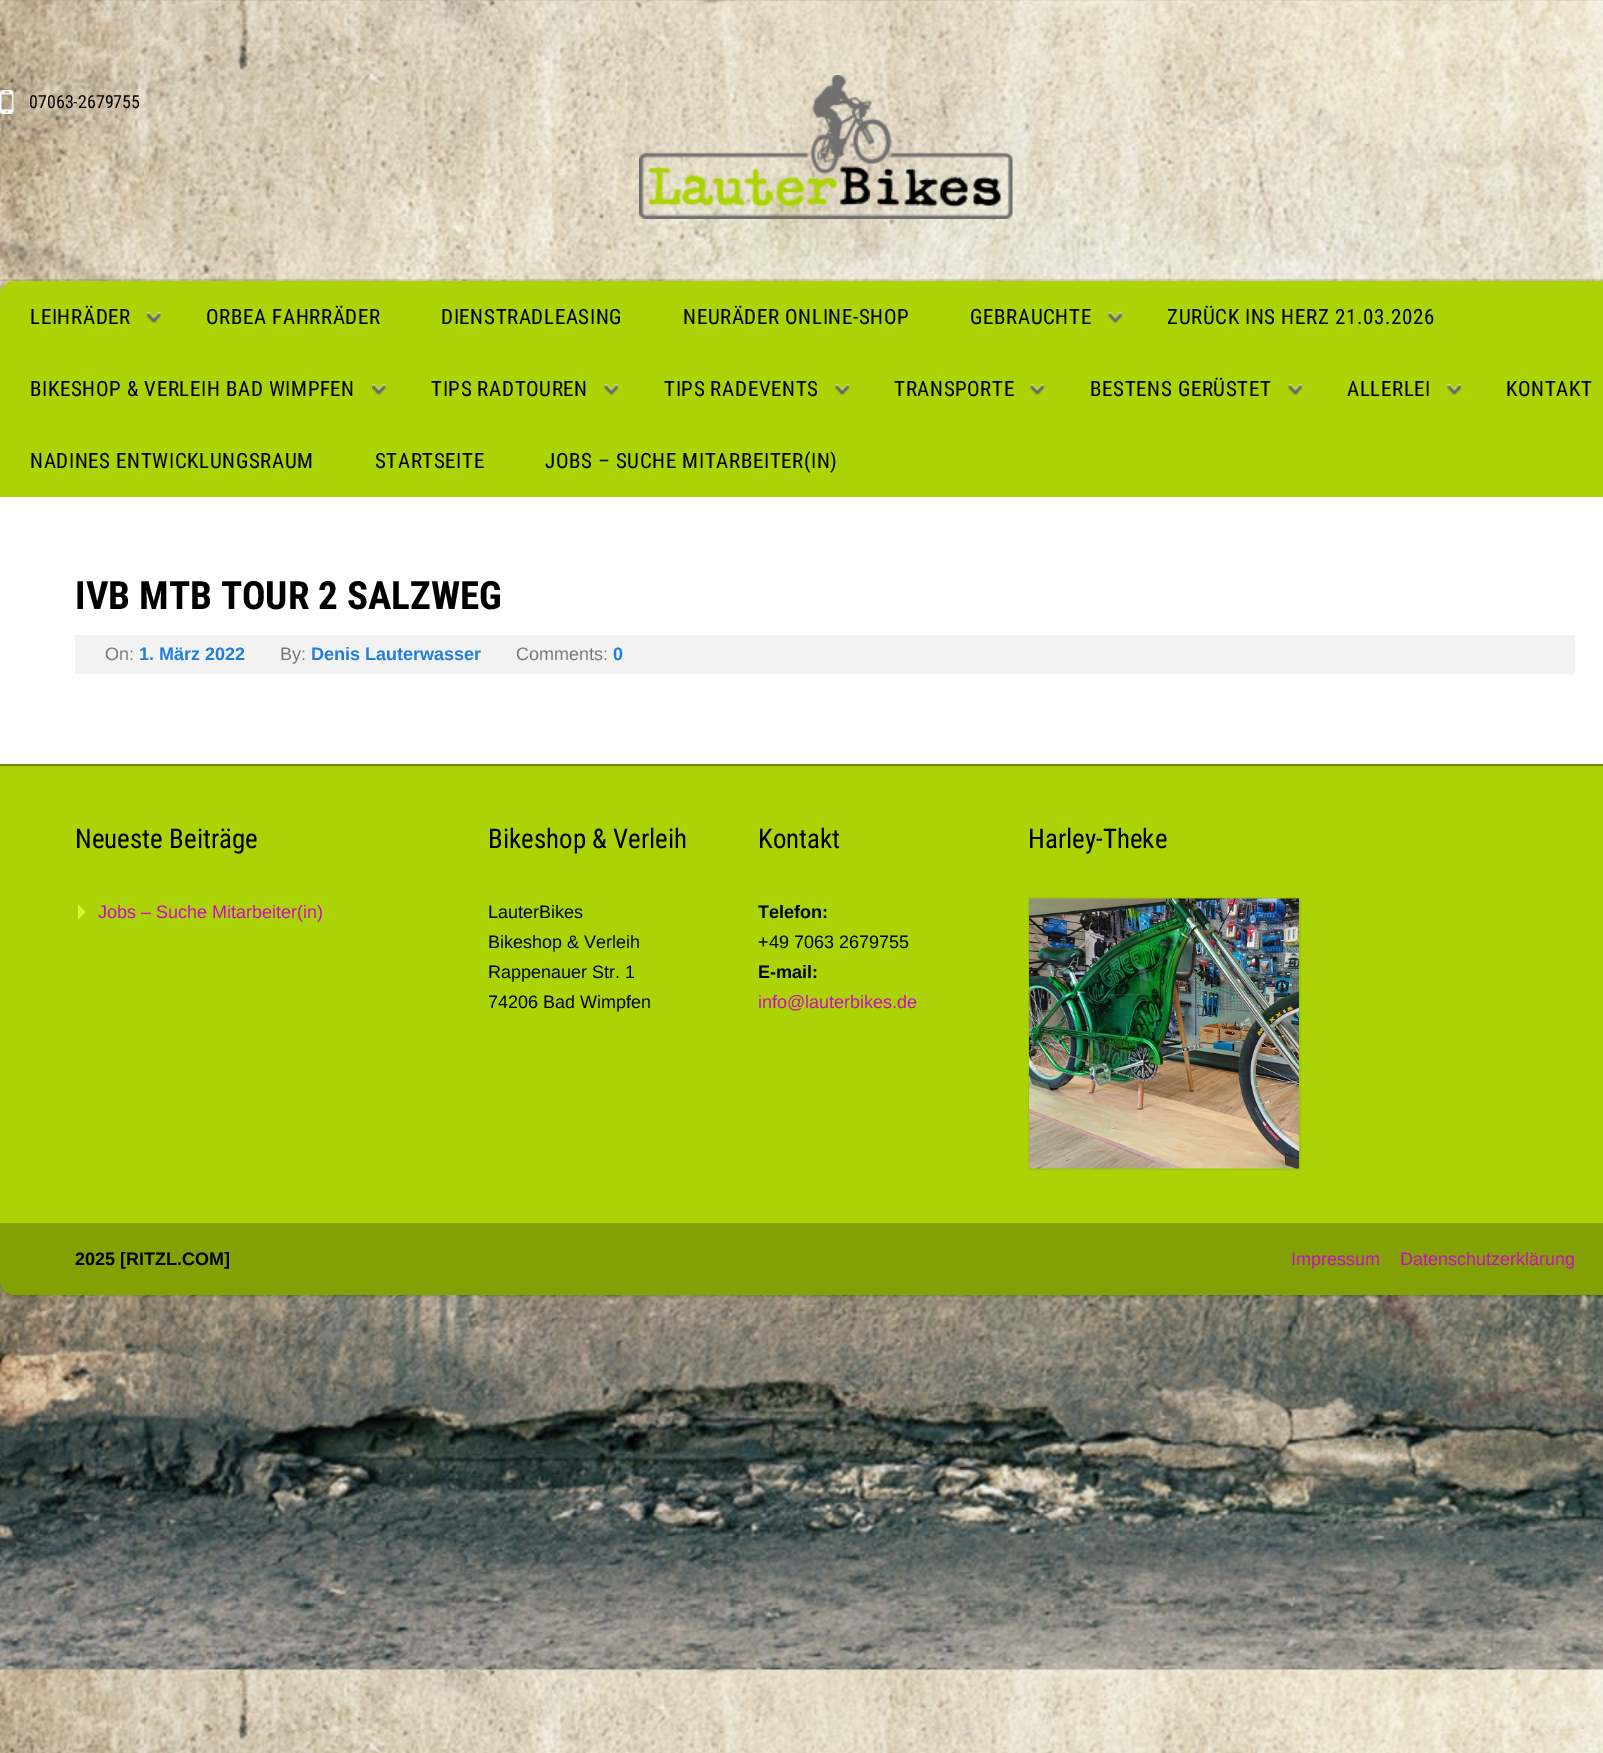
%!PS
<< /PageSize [1603 1753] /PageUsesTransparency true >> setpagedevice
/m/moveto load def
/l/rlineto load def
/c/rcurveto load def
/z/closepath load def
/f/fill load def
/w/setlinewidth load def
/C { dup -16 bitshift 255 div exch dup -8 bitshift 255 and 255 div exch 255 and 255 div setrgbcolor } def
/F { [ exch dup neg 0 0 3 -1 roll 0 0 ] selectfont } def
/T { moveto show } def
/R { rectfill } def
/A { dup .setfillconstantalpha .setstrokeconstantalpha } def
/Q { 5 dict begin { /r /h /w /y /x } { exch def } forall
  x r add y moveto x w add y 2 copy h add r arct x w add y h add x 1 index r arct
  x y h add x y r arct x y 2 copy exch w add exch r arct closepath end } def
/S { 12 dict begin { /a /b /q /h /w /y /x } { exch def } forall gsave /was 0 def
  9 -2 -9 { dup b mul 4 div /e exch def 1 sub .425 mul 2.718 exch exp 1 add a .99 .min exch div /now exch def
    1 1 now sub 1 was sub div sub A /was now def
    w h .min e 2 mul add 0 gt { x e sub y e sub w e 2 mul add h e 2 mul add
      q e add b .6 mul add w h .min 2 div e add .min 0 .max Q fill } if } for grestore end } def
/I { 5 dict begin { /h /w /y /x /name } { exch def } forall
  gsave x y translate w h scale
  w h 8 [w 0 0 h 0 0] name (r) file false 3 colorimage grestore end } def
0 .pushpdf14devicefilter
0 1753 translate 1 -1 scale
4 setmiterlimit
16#FFFFFF C
0 0 1603 1753 R
(1.rgb) 0 0 1603 1753 I
16#000000 C
0 282 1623 1014 15 1.5 .2 S
0.1 A
0 279 1603 2 R
1 A
(2.rgb) 0 90 14 24 I
/RobotoCondensed-Regular 18 F
(07063-2679755) 29 108 T
(3.rgb) 639 75 374 144 I
16#ABD305 C
15 281 m 1588 0 l 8.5 0 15 6.5 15 15 c 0 201 l -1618 0 l 0 -201 l 0 -8.5 6.5 -15 15 -15 c z f
(4.rgb) 147 312 14 11 I
/RobotoCondensed-Regular 21 F
16#000000 C
30 324 m .6 0 (LEIHRÄDER) ashow
206 324 m .6 0 (ORBEA FAHRRÄDER) ashow
441 324 m .6 0 (DIENSTRADLEASING) ashow
683 324 m .6 0 (NEURÄDER ONLINE-SHOP) ashow
(5.rgb) 1108 312 14 11 I
970 324 m .6 0 (GEBRAUCHTE) ashow
1167 324 m .6 0 (ZURÜCK INS HERZ 21.03.2026) ashow
(6.rgb) 372 384 14 11 I
30 396 m .6 0 (BIKESHOP & VERLEIH BAD WIMPFEN) ashow
(7.rgb) 604 384 14 11 I
431 396 m .6 0 (TIPS RADTOUREN) ashow
(5.rgb) 835 384 14 11 I
664 396 m .6 0 (TIPS RADEVENTS) ashow
(5.rgb) 1030 384 14 11 I
894 396 m .6 0 (TRANSPORTE) ashow
(7.rgb) 1288 384 14 11 I
1090 396 m .6 0 (BESTENS GERÜSTET) ashow
(7.rgb) 1447 384 14 11 I
1347 396 m .6 0 (ALLERLEI) ashow
1506 396 m .6 0 (KONTAKT) ashow
30 468 m .6 0 (NADINES ENTWICKLUNGSRAUM) ashow
375 468 m .6 0 (STARTSEITE) ashow
545 468 m .6 0 (JOBS – SUCHE MITARBEITER\(IN\)) ashow
16#FFFFFF C
0 497 1603 267 R
/RobotoCondensed-Bold 39 F
16#000000 C
(IVB MTB TOUR 2 SALZWEG) 75 609 T
16#F2F2F2 C
75 635 1500 39 R
/LiberationSans-Regular 18 F
16#777777 C
(On:) 105 660 T
/LiberationSans-Bold 18 F
16#207DDA C
(1. März 2022) 139 660 T
/LiberationSans-Regular 18 F
16#777777 C
(By:) 280 660 T
/LiberationSans-Bold 18 F
16#207DDA C
(Denis Lauterwasser) 311 660 T
/LiberationSans-Regular 18 F
16#777777 C
(Comments:) 516 660 T
/LiberationSans-Bold 18 F
16#207DDA C
(0) 613 660 T
16#ABD305 C
0 767 1603 456 R
16#A6CA11 C
0 766 1603 1 R
16#6E8803 C
0 764 1603 2 R
/RobotoCondensed-Regular 27 F
16#000000 C
(Neueste Beiträge) 75 848 T
16#D5FA39 C
78 919.5 m 0 -15 l 7.5 7.5 l z f
/LiberationSans-Regular 18 F
16#CC08CC C
(Jobs – Suche Mitarbeiter\(in\)) 98 918 T
/RobotoCondensed-Regular 27 F
16#000000 C
(Bikeshop & Verleih) 488 848 T
/LiberationSans-Regular 18 F
(LauterBikes) 488 918 T
(Bikeshop & Verleih) 488 948 T
(Rappenauer Str. 1) 488 978 T
(74206 Bad Wimpfen) 488 1008 T
/RobotoCondensed-Regular 27 F
(Kontakt) 758 848 T
/LiberationSans-Bold 18 F
(Telefon:) 758 918 T
/LiberationSans-Regular 18 F
(+49 7063 2679755) 758 948 T
/LiberationSans-Bold 18 F
(E-mail:) 758 978 T
/LiberationSans-Regular 18 F
16#CC08CC C
(info@lauterbikes.de) 758 1008 T
/RobotoCondensed-Regular 27 F
16#000000 C
(Harley-Theke) 1028 848 T
16#A2C805 C
2 w
1029 898 271 271 rectstroke
(8.rgb) 1029 898 270 271 I
16#83A104 C
0 1223 m 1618 0 l 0 57 l 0 8.5 -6.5 15 -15 15 c -1588 0 l -8.5 0 -15 -6.5 -15 -15 c z f
/LiberationSans-Bold 18 F
16#000000 C
(2025 [RITZL.COM]) 75 1265 T
/LiberationSans-Regular 18 F
16#CC08CC C
(Impressum) 1291 1265 T
(Datenschutzerklärung) 1400 1265 T
.poppdf14devicefilter showpage
